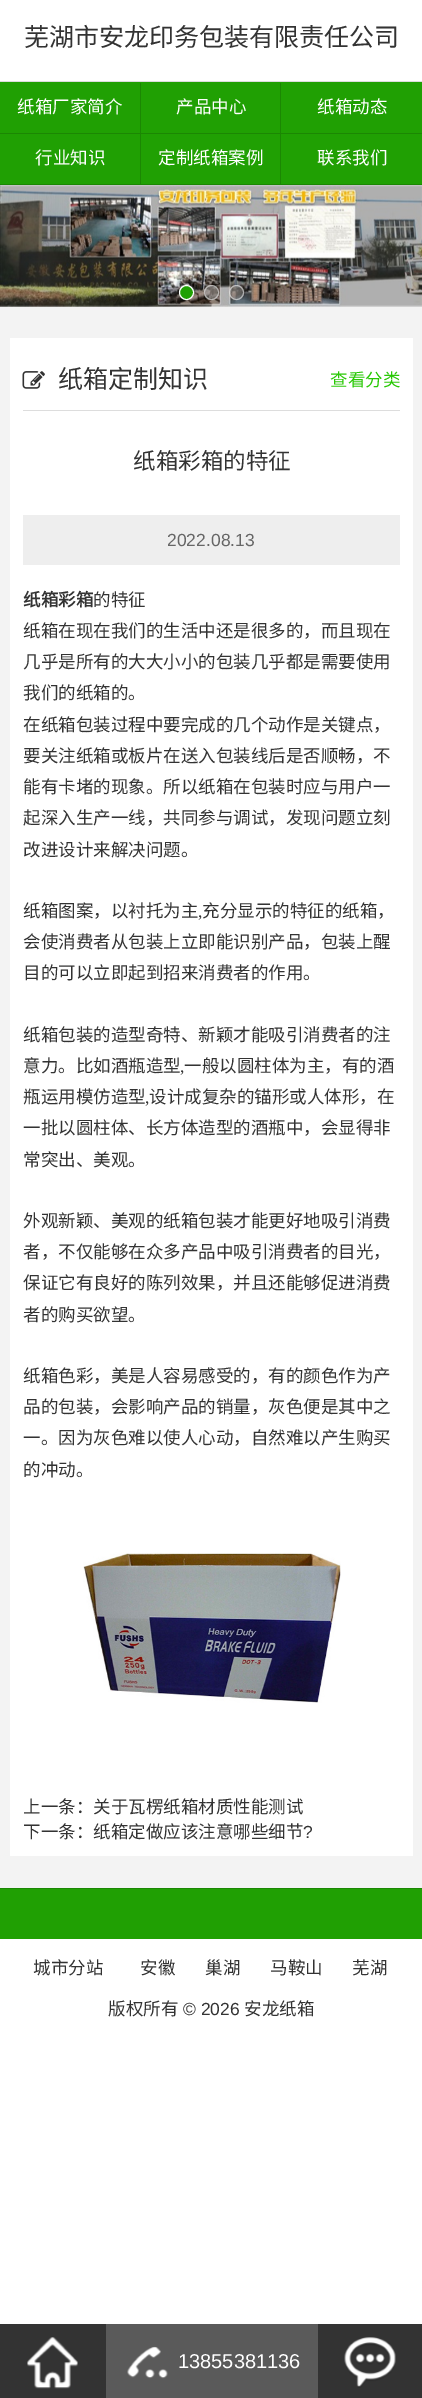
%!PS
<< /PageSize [422 2398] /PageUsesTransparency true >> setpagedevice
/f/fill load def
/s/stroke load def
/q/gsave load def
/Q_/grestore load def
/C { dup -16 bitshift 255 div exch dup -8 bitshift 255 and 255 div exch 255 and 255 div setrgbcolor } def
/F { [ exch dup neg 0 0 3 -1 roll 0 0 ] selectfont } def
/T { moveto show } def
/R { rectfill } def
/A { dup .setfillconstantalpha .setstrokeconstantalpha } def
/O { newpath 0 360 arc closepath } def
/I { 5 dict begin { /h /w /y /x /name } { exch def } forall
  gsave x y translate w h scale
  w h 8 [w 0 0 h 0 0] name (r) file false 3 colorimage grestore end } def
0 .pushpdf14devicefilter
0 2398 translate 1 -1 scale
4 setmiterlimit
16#FFFFFF C
0 0 422 2398 R
/NotoSansCJKSC-Regular 25 F
16#333333 C
(芜湖市安龙印务包装有限责任公司) 24 46 T
16#20A003 C
0 82 422 102 R
16#DDDDDD C
0 81 422 1 R
16#1B8703 C
140 83 1 102 R
0 133 141 1 R
/NotoSansCJKSC-Regular 17.5 F
16#FFFFFF C
(纸箱厂家简介) 17 113 T
16#1B8703 C
280 83 1 102 R
141 133 281 1 R
16#FFFFFF C
(产品中心) 176 113 T
(纸箱动态) 317 113 T
16#1B8703 C
0 184 422 1 R
16#FFFFFF C
(行业知识) 35 164 T
(定制纸箱案例) 158 164 T
(联系我们) 317 164 T
16#F3F3F3 C
0 306 422 1582 R
(1.rgb) 0 185 422 122 I
16#20A003 C
186.5 292.5 7 O q f Q_
16#FFFFFF C
s
0.5 A
16#999999 C
211.5 292.5 7.5 O f
16#FFFFFF C
211.5 292.5 7 O s
16#999999 C
236.5 292.5 7.5 O f
16#FFFFFF C
236.5 292.5 7 O s
1 A
10 338 403 1518 R
16#DDDDDD C
23 410 377 1 R
(2.rgb) 22 371 23 18 I
/NotoSansCJKSC-Regular 25 F
16#333333 C
(纸箱定制知识) 58 388 T
/NotoSansCJKSC-Regular 17.5 F
16#28C804 C
(查看分类) 330 386 T
/NotoSansCJKSC-Regular 22.5 F
16#333333 C
(纸箱彩箱的特征) 133 469 T
16#EEEEEE C
23 515 377 50 R
/LiberationSans-Regular 17.5 F
16#666666 C
(2022.08.13) 167 546 T
/NotoSansCJKSC-Bold 17.5 F
16#333333 C
(纸箱彩箱) 23 606 T
/NotoSansCJKSC-Regular 17.5 F
(的特征) 93 606 T
(纸箱在现在我们的生活中还是很多的，而且现在) 23 637 T
(几乎是所有的大大小小的包装几乎都是需要使用) 23 668 T
(我们的纸箱的。) 23 699 T
(在纸箱包装过程中要完成的几个动作是关键点，) 23 731 T
(要关注纸箱或板片在送入包装线后是否顺畅，不) 23 762 T
(能有卡堵的现象。所以纸箱在包装时应与用户一) 23 793 T
(起深入生产一线，共同参与调试，发现问题立刻) 23 824 T
(改进设计来解决问题。) 23 856 T
(纸箱图案，以衬托为主) 23 917 T
/LiberationSerif-Regular 17.5 F
(,) 198 917 T
/NotoSansCJKSC-Regular 17.5 F
(充分显示的特征的纸箱，) 202 917 T
(会使消费者从包装上立即能识别产品，包装上醒) 23 948 T
(目的可以立即起到招来消费者的作用。) 23 979 T
(纸箱包装的造型奇特、新颖才能吸引消费者的注) 23 1041 T
(意力。比如酒瓶造型) 23 1072 T
/LiberationSerif-Regular 17.5 F
(,) 180 1072 T
/NotoSansCJKSC-Regular 17.5 F
(一般以圆柱体为主，有的酒) 184 1072 T
(瓶运用模仿造型) 23 1103 T
/LiberationSerif-Regular 17.5 F
(,) 145 1103 T
/NotoSansCJKSC-Regular 17.5 F
(设计成复杂的锚形或人体形，在) 149 1103 T
(一批以圆柱体、长方体造型的酒瓶中，会显得非) 23 1134 T
(常突出、美观。) 23 1166 T
(外观新颖、美观的纸箱包装才能更好地吸引消费) 23 1227 T
(者，不仅能够在众多产品中吸引消费者的目光，) 23 1258 T
(保证它有良好的陈列效果，并且还能够促进消费) 23 1289 T
(者的购买欲望。) 23 1321 T
(纸箱色彩，美是人容易感受的，有的颜色作为产) 23 1382 T
(品的包装，会影响产品的销量，灰色便是其中之) 23 1413 T
(一。因为灰色难以使人心动，自然难以产生购买) 23 1444 T
(的冲动。) 23 1476 T
(3.rgb) 83 1552 258 151 I
(上一条：关于瓦楞纸箱材质性能测试) 23 1813 T
(下一条：纸箱定做应该注意哪些细节) 23 1838 T
/LiberationSans-Regular 17.5 F
(?) 303 1838 T
16#20A003 C
0 1889 422 50 R
16#1B8703 C
0 1888 422 1 R
/NotoSansCJKSC-Regular 17.5 F
16#333333 C
(城市分站) 33 1974 T
(安徽) 140 1974 T
(巢湖) 205 1974 T
(马鞍山) 270 1974 T
(芜湖) 352 1974 T
(版权所有) 108 2015 T
/LiberationSans-Regular 17.5 F
(© 2026) 183 2015 T
/NotoSansCJKSC-Regular 17.5 F
(安龙纸箱) 244 2015 T
0 2324 422 74 R
(4.rgb) 27 2337 51 52 I
16#5A5A5A C
106 2324 212 74 R
(5.rgb) 127 2346 41 33 I
/LiberationSans-Regular 20 F
16#FFFFFF C
(13855381136) 178 2368 T
(6.rgb) 344 2337 52 51 I
.poppdf14devicefilter showpage
